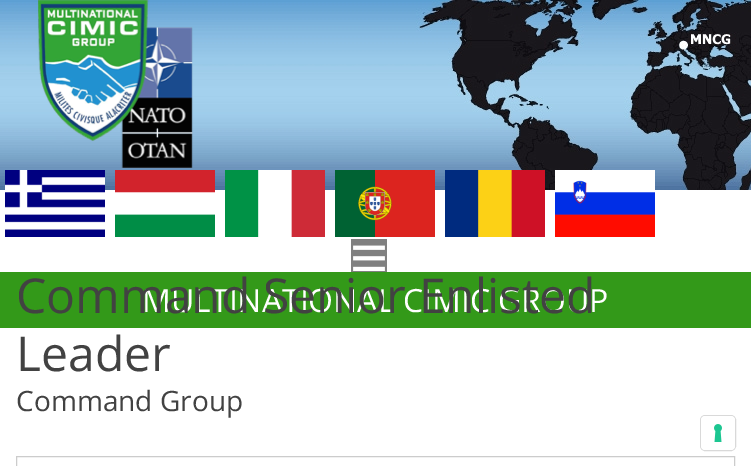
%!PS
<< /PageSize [751 466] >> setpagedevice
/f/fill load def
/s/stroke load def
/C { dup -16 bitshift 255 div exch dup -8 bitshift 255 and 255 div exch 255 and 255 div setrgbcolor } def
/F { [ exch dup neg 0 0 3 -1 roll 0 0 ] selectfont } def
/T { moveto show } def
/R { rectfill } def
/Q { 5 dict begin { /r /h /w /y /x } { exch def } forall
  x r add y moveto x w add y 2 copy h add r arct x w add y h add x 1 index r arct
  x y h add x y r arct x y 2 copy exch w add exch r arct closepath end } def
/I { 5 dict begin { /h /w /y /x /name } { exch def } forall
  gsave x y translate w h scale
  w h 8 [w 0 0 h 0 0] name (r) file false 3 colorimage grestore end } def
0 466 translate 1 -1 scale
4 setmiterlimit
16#FFFFFF C
0 0 751 466 R
16#339919 C
0 272 751 56 R
/OpenSans-Regular 32 F
16#FFFFFF C
(MULTINATIONAL CIMIC GROUP) 142 312 T
/OpenSans-Regular 48 F
16#424242 C
(Command Senior Enlisted) 16 313 T
(Leader) 16 371 T
/OpenSans-Regular 28 F
(Command Group) 16 411 T
(1.rgb) 0 0 751 190 I
(2.rgb) 38 0 155 168 I
(3.rgb) 5 170 650 67 I
16#808080 C
351 239 36 33 R
(4.rgb) 353 245 32 26 I
16#CCCCCC C
16.5 456.5 718 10 rectstroke
16#D9D9D9 C
700.5 415.5 35 35 4.5 Q s
16#FFFFFF C
701 416 34 34 4 Q f
(5.rgb) 714 424 8 18 I
showpage
